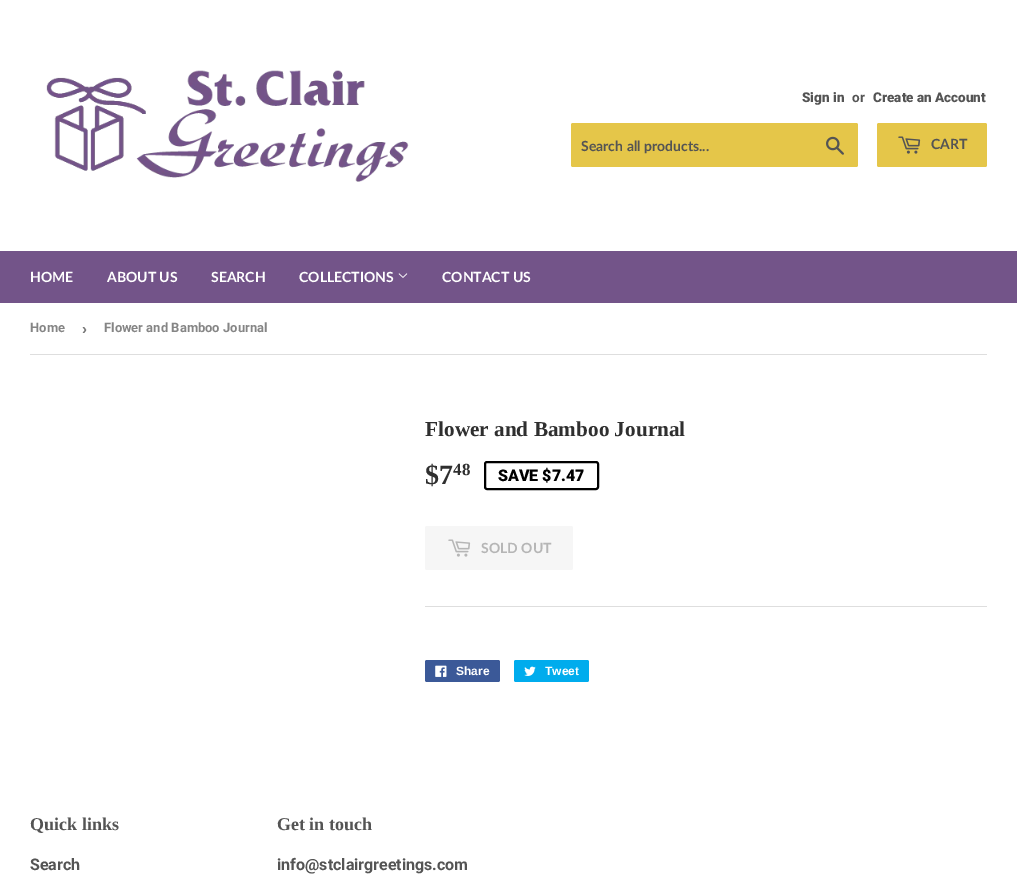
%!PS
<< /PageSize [1017 893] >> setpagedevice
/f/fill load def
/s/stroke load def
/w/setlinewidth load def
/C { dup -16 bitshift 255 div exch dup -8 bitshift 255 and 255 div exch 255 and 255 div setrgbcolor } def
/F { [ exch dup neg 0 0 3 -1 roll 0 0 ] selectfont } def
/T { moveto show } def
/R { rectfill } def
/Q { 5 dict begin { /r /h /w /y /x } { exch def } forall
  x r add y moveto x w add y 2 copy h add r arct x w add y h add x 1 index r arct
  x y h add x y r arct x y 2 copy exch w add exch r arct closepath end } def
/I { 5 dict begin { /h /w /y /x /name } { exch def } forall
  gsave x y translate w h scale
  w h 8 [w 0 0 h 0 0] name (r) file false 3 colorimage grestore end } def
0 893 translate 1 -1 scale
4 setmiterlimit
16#FFFFFF C
0 0 1017 893 R
(1.rgb) 46 70 363 112 I
/Roboto-Black 13.5 F
16#545454 C
(Sign in) 802 102 T
/Roboto-Bold 13.5 F
(or) 852 102 T
/Roboto-Black 13.5 F
(Create an Account) 873 102 T
16#E5C649 C
571 123 287 44 2 Q f
/Lato-Bold 14 F
16#545454 C
(Search all products...) 581 151 T
(2.rgb) 826 136 18 19 I
16#E5C649 C
877 123 110 44 2 Q f
(3.rgb) 898 136 23 18 I
16#545454 C
(CART) 931 149 T
16#735489 C
0 251 1017 52 R
16#FFFFFF C
(HOME) 30 282 T
(ABOUT US) 107 282 T
(SEARCH) 211 282 T
(COLLECTIONS) 299 282 T
(4.rgb) 398 273 10 5 I
(CONTACT US) 442 282 T
16#DEDEDE C
30 354 957 1 R
/Roboto-Bold 13 F
16#858585 C
(Home) 30 332 T
/LiberationSans-Bold 15 F
16#767676 C
(›) 82 334 T
/Roboto-Bold 13 F
16#858585 C
(Flower and Bamboo Journal) 104 332 T
/LiberationSerif-Bold 21.25 F
16#2F2F2F C
(Flower and Bamboo Journal) 425 436 T
/LiberationSerif-Bold 28 F
($7) 425 484 T
/LiberationSerif-Bold 17 F
(48) 453 475 T
16#000000 C
2 w
485 462 113 27 2 Q s
/Roboto-Black 16 F
(SAVE $7.47) 498 481 T
16#F6F6F6 C
425 526 148 44 2 Q f
(5.rgb) 448 539 23 18 I
/Lato-Bold 14 F
16#B6B6B6 C
(SOLD OUT) 481 553 T
16#DEDEDE C
425 606 562 1 R
16#3B5998 C
425 660 75 22 2 Q f
(6.rgb) 435 665 12 12 I
/LiberationSans-Bold 12 F
16#FFFFFF C
(Share) 456 675 T
16#00ACED C
514 660 75 22 2 Q f
(7.rgb) 524 666 12 10 I
16#FFFFFF C
(Tweet) 545 675 T
/LiberationSerif-Bold 18 F
16#545454 C
(Quick links) 30 830 T
/Roboto-Bold 16 F
(Search) 30 870 T
/LiberationSerif-Bold 18 F
(Get in touch) 277 830 T
/Roboto-Bold 16 F
(info@stclairgreetings.com) 277 870 T
showpage
